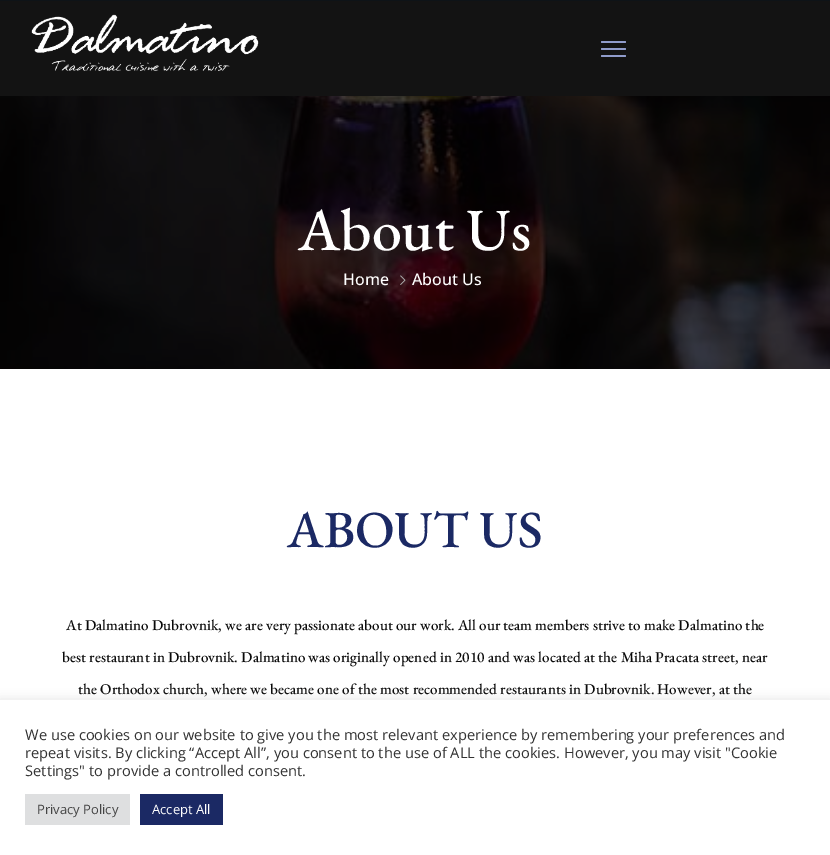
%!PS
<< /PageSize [830 855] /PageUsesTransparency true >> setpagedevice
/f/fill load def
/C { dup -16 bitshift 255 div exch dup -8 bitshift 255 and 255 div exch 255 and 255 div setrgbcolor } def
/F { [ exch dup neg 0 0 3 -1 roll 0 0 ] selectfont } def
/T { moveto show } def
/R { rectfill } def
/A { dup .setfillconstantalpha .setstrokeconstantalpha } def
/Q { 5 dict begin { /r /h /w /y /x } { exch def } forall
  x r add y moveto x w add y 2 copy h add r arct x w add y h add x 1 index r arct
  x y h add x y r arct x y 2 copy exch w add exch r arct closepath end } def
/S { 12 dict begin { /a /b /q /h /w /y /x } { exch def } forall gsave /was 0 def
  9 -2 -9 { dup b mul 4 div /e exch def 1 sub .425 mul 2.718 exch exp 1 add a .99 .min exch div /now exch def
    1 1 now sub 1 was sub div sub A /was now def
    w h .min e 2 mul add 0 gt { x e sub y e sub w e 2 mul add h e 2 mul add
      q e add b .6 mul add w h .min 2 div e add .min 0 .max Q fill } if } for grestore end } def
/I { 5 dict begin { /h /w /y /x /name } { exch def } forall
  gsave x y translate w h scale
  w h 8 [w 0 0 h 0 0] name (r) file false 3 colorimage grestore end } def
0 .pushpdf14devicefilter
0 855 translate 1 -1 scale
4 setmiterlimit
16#FFFFFF C
0 0 830 855 R
16#0E1317 C
0 0 830 1 R
16#131313 C
0 1 830 95 R
(1.rgb) 31 14 228 57 I
16#909CCB C
601 41 25 2 1 Q f
601 48 25 2 1 Q f
601 55 25 2 1 Q f
(2.rgb) 0 96 830 273 I
/EBGaramond-Medium 60 F
16#FFFFFF C
(About Us) 298 250 T
/OpenSans-Medium 16 F
(Home) 343 285 T
(3.rgb) 400 275 6 10 I
(About Us) 412 285 T
/EBGaramond-Medium 52 F
16#1B2964 C
(ABOUT US) 287 547 T
/EBGaramond-Medium 15 F
16#0A0A0A C
(At Dalmatino Dubrovnik, we are very passionate about our work. All our team members strive to make Dalmatino the) 66 630 T
(best restaurant in Dubrovnik. Dalmatino was originally opened in 2010 and was located at the Miha Pracata street, near) 62 662 T
(the Orthodox church, where we became one of the most recommended restaurants in Dubrovnik. However, at the) 78 694 T
16#ACABAB C
0 699 830 155 0 5 .3 S
16#FFFFFF C
0 700 830 155 R
/OpenSans-Regular 14.67 F
16#333333 C
(We use cookies on our website to give you the most relevant experience by remembering your preferences and) 25 740 T
(repeat visits. By clicking “Accept All”, you consent to the use of ALL the cookies. However, you may visit "Cookie) 25 758 T
(Settings" to provide a controlled consent.) 25 776 T
16#DEDFE0 C
25 794 105 31 R
/OpenSans-Regular 13 F
16#444444 C
(Privacy Policy) 37 814 T
16#1B2964 C
140 794 83 31 R
16#FFFFFF C
(Accept All) 152 814 T
.poppdf14devicefilter showpage
